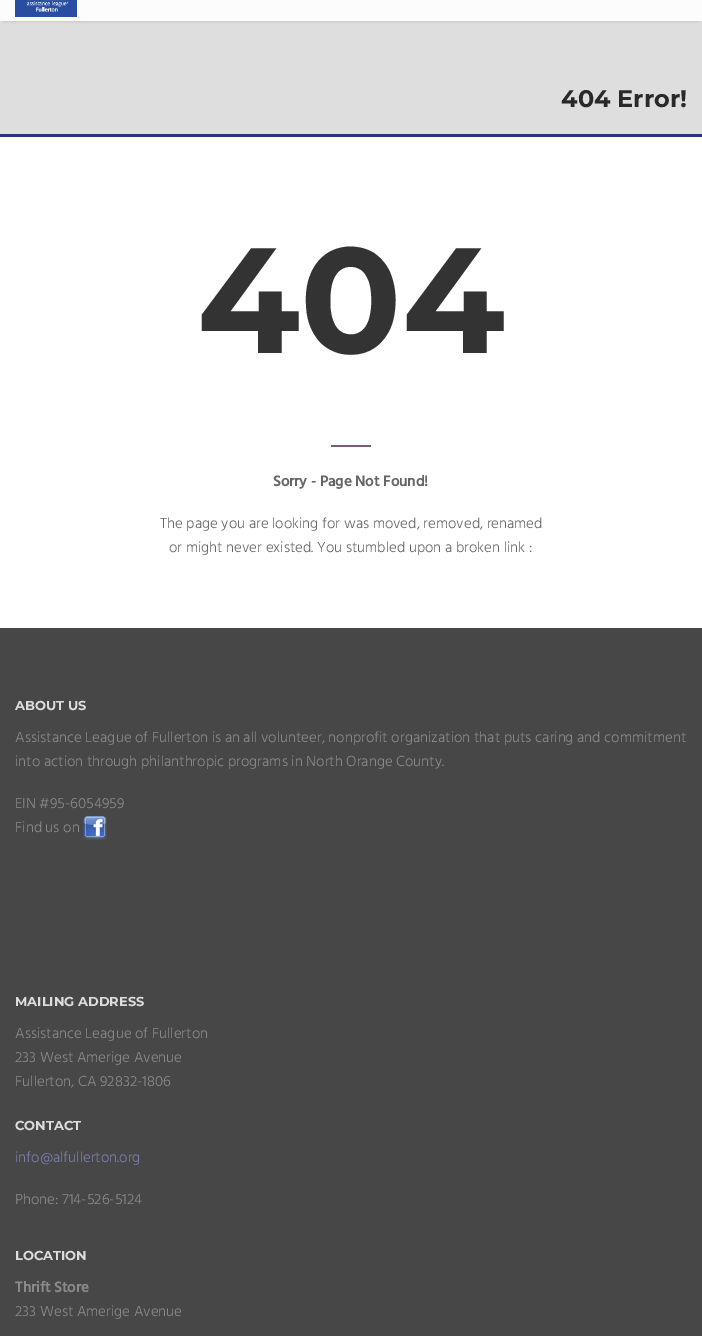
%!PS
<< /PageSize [702 1336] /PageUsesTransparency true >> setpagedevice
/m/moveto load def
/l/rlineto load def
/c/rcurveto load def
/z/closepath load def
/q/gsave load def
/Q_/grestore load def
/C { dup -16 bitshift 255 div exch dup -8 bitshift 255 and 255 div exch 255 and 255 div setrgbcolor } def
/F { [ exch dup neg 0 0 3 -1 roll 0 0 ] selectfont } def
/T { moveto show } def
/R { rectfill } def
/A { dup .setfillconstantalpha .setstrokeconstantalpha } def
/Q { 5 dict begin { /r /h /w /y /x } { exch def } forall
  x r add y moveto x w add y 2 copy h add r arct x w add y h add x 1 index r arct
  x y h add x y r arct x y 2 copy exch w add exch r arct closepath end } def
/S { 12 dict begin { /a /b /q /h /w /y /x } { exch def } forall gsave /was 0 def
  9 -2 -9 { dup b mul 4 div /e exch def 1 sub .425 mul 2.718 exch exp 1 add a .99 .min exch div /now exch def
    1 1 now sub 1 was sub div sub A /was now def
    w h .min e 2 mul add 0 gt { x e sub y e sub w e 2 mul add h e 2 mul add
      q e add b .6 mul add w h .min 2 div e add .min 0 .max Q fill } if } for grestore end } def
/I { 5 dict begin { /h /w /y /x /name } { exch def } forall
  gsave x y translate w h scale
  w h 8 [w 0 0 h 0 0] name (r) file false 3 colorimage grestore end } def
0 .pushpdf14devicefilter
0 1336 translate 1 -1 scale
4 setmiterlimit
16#FFFFFF C
0 0 702 1336 R
16#DFDEDE C
0 0 702 134 R
q
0 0 m 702 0 l 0 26 l -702 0 l z 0 -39 m 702 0 l 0 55 l 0 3 -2 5 -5 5 c -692 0 l -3 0 -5 -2 -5 -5 c z eoclip newpath
16#000000 C
0 -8 702 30 5 1 .1 S
Q_
0.9 A
16#FFFFFF C
0 0 702 21 R
1 A
(1.rgb) 15 0 62 17 I
16#21387D C
0 134 702 3 R
/Montserrat-Thin 24 F
16#292929 C
(404 Error!) 561 107 T
/Montserrat-Thin 150 F
16#333333 C
(404) 197 353 T
16#7A5A78 C
331 445 40 2 R
/Hind-Bold 15 F
16#666666 C
(Sorry - Page Not Found!) 273 486 T
/Hind-Light 15 F
(The page you are looking for was moved, removed, renamed) 160 528 T
(or might never existed. You stumbled upon a broken link :) 169 552 T
16#474747 C
0 628 702 708 R
/Montserrat-Thin 13 F
16#DDDDDD C
(ABOUT US) 15 710 T
/Hind-Light 15 F
16#8A8A8A C
(Assistance League of Fullerton is an all volunteer, nonprofit organization that puts caring and commitment) 15 742 T
(into action through philanthropic programs in North Orange County.) 15 766 T
(EIN #95-6054959) 15 808 T
(Find us on) 15 832 T
(2.rgb) 83 816 24 24 I
/Montserrat-Thin 13 F
16#DDDDDD C
(MAILING ADDRESS) 15 1006 T
/Hind-Light 15 F
16#8A8A8A C
(Assistance League of Fullerton) 15 1038 T
(233 West Amerige Avenue) 15 1062 T
(Fullerton, CA 92832-1806) 15 1086 T
/Montserrat-Thin 13 F
16#DDDDDD C
(CONTACT) 15 1130 T
/Hind-Light 15 F
16#7B7FAE C
(info@alfullerton.org) 15 1162 T
16#8A8A8A C
(Phone: 714-526-5124) 15 1204 T
/Montserrat-Thin 13 F
16#DDDDDD C
(LOCATION) 15 1260 T
/Hind-Bold 15 F
16#8A8A8A C
(Thrift Store) 15 1292 T
/Hind-Light 15 F
(233 West Amerige Avenue) 15 1316 T
.poppdf14devicefilter showpage
